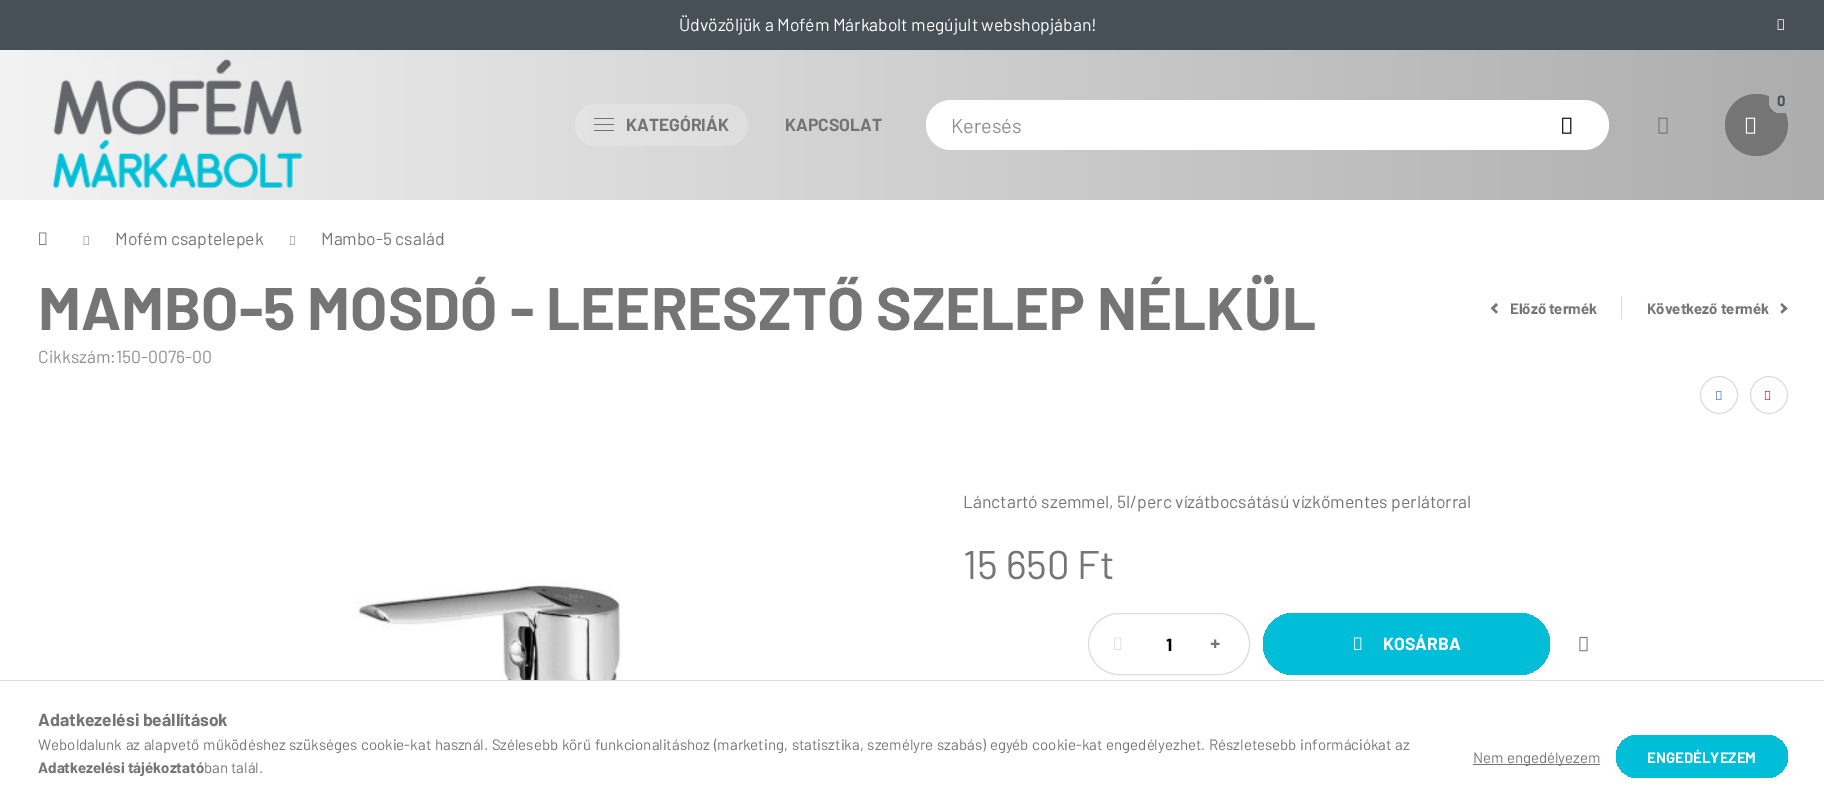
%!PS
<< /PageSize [1824 802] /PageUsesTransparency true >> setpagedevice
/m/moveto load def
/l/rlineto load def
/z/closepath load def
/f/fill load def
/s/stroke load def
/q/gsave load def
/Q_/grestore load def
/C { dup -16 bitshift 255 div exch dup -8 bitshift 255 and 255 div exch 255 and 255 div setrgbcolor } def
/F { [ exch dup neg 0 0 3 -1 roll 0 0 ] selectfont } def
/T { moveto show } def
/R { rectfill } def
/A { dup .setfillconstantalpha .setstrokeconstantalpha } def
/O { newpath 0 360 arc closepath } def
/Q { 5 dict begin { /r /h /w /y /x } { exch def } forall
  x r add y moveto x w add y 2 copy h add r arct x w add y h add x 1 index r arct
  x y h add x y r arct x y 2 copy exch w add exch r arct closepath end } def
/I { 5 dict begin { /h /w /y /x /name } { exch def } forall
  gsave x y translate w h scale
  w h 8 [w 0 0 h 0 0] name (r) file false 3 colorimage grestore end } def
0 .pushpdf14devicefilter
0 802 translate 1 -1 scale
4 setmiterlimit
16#FFFFFF C
0 0 1824 802 R
16#485057 C
0 0 1824 50 R
/Barlow-Regular 17.5 F
16#FFFFFF C
(Üdvözöljük a Mofém Márkabolt megújult webshopjában!) 679 31 T
(1.rgb) 1777 19 7 11 I
q 0 50 m 1824 0 l 0 150 l -1824 0 l z clip newpath
<< /ShadingType 2 /ColorSpace /DeviceRGB /Coords [0 401 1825 401] /Extend [true true] /Function << /FunctionType 2 /Domain [0 1] /C0 [.953 .953 .953] /C1 [.678 .678 .678] /N 1 >> >> shfill Q_
(2.rgb) 52 58 251 130 I
0.2 A
575 104 173 42 21 Q f
1 A
16#757575 C
594 118 20 1 R
594 124 20 1 R
594 130 20 1 R
/Barlow-Bold 17.5 F
(KATEGÓRIÁK) 626 131 T
(KAPCSOLAT) 785 131 T
1725 94 63 62 31 Q f
q 1781.5 100.5 12.5 O clip newpath
<< /ShadingType 2 /ColorSpace /DeviceRGB /Coords [0 401 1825 401] /Extend [true true] /Function << /FunctionType 2 /Domain [0 1] /C0 [.953 .953 .953] /C1 [.678 .678 .678] /N 1 >> >> shfill Q_
/Barlow-Bold 15 F
16#485057 C
(0) 1777 106 T
(3.rgb) 1745 117 11 17 I
16#FFFFFF C
926 100 683 50 25 Q f
/Barlow-Regular 20 F
16#8F8F8F C
(Keresés) 951 133 T
(4.rgb) 1562 117 10 17 I
(5.rgb) 1658 117 10 17 I
(6.rgb) 39 232 8 13 I
(7.rgb) 83 236 6 9 I
/Barlow-Regular 17.5 F
16#757575 C
(Mofém csaptelepek) 115 245 T
(8.rgb) 289 236 7 9 I
(Mambo-5 család) 321 245 T
/Barlow-Bold 60 F
(MAMBO-5 MOSDÓ - LEERESZTŐ SZELEP NÉLKÜL) 38 330 T
1491 308.5 m 5 -5.5 l 2 2 l -5.5 5 l z f
1492.5 306.5 m 5.5 5.5 l -2 1.5 l -5 -5 l z f
/Barlow-Bold 15 F
(Előző termék) 1510 314 T
16#DADCDD C
1621 296 1 23 R
16#757575 C
(Következő termék) 1647 314 T
1780.5 312 m 5 -5.5 l 2 2 l -5.5 5 l z f
1782 303 m 5.5 5.5 l -2 1.5 l -5 -5 l z f
/Barlow-Regular 17.5 F
16#8F8F8F C
(Cikkszám:150-0076-00) 38 363 T
16#DADCDD C
1719 395 18.5 O s
(9.rgb) 1716 391 6 9 I
1769 395 18.5 O s
(10.rgb) 1764 391 7 9 I
(11.rgb) 304 579 317 101 I
16#757575 C
(Lánctartó szemmel, 5l/perc vízátbocsátású vízkőmentes perlátorral) 963 508 T
/Barlow-Regular 40 F
(15 650 Ft) 963 579 T
16#DADCDD C
1088.5 613.5 161 61 30.5 Q s
(12.rgb) 1114 637 8 13 I
/Barlow-Bold 17.5 F
16#000000 C
(1) 1166 651 T
/NotoSans-Black 17.5 F
16#757575 C
(+) 1210 650 T
q 1263 613 287 62 31 Q clip newpath
<< /ShadingType 2 /ColorSpace /DeviceRGB /Coords [1263 644 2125 644] /Extend [true true] /Function << /FunctionType 3 /Domain [0 1] /Functions [<< /FunctionType 2 /Domain [0 1] /C0 [0 .745 .843] /C1 [0 .745 .843] /N 1 >> << /FunctionType 2 /Domain [0 1] /C0 [0 .745 .843] /C1 [.388 .396 .416] /N 1 >> << /FunctionType 2 /Domain [0 1] /C0 [.388 .396 .416] /C1 [.388 .396 .416] /N 1 >>] /Bounds [.33 .67] /Encode [0 1 0 1 0 1] >> >> shfill Q_
(13.rgb) 1354 637 8 13 I
/Barlow-Bold 17.5 F
16#FFFFFF C
(KOSÁRBA) 1383 650 T
(14.rgb) 1579 636 9 16 I
16#DADCDD C
0 680 1824 1 R
16#757575 C
(Adatkezelési beállítások) 38 726 T
/Barlow-Regular 15 F
38 750 m .8 0 32 (Weboldalunk az alapvető működéshez szükséges cookie-kat használ. Szélesebb körű funkcionalitáshoz \(marketing, statisztika, személyre szabás\) egyéb cookie-kat engedélyezhet. Részletesebb információkat az) widthshow
/Barlow-Bold 15 F
(Adatkezelési tájékoztató) 38 773 T
/Barlow-Regular 15 F
(ban talál.) 204 773 T
1473 764 127 1 R
(Nem engedélyezem) 1473 763 T
q 1616 735 172 43 21.5 Q clip newpath
<< /ShadingType 2 /ColorSpace /DeviceRGB /Coords [1616 756 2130 756] /Extend [true true] /Function << /FunctionType 3 /Domain [0 1] /Functions [<< /FunctionType 2 /Domain [0 1] /C0 [0 .745 .843] /C1 [0 .745 .843] /N 1 >> << /FunctionType 2 /Domain [0 1] /C0 [0 .745 .843] /C1 [.388 .396 .416] /N 1 >> << /FunctionType 2 /Domain [0 1] /C0 [.388 .396 .416] /C1 [.388 .396 .416] /N 1 >>] /Bounds [.33 .67] /Encode [0 1 0 1 0 1] >> >> shfill Q_
/Barlow-Bold 15 F
16#FFFFFF C
(ENGEDÉLYEZEM) 1647 763 T
.poppdf14devicefilter showpage
